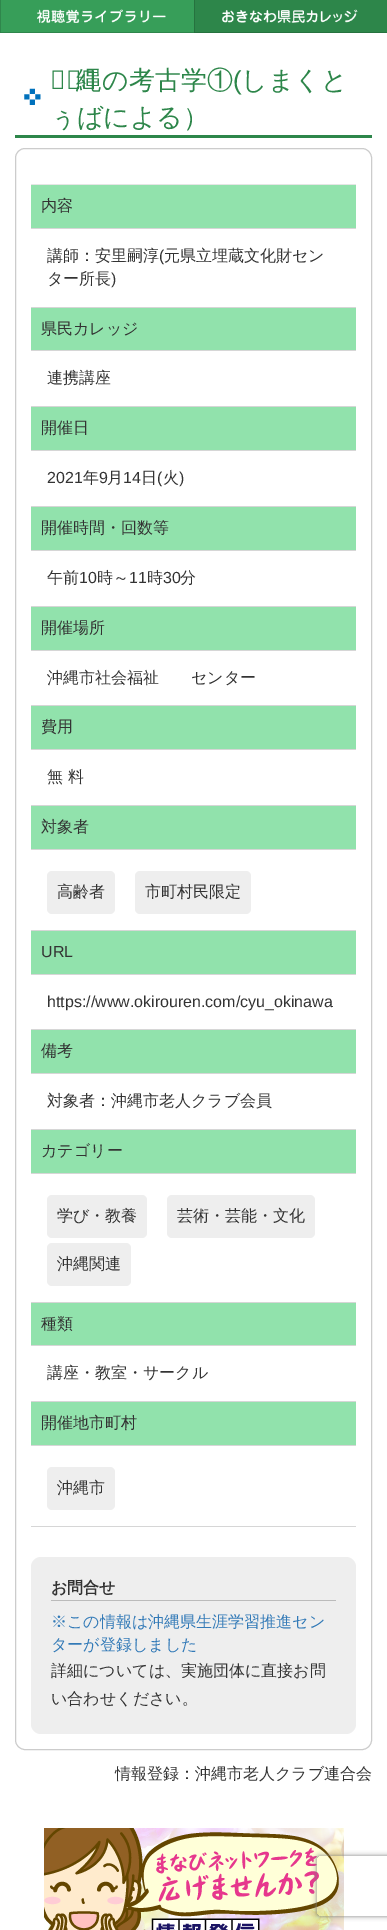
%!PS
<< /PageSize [387 1930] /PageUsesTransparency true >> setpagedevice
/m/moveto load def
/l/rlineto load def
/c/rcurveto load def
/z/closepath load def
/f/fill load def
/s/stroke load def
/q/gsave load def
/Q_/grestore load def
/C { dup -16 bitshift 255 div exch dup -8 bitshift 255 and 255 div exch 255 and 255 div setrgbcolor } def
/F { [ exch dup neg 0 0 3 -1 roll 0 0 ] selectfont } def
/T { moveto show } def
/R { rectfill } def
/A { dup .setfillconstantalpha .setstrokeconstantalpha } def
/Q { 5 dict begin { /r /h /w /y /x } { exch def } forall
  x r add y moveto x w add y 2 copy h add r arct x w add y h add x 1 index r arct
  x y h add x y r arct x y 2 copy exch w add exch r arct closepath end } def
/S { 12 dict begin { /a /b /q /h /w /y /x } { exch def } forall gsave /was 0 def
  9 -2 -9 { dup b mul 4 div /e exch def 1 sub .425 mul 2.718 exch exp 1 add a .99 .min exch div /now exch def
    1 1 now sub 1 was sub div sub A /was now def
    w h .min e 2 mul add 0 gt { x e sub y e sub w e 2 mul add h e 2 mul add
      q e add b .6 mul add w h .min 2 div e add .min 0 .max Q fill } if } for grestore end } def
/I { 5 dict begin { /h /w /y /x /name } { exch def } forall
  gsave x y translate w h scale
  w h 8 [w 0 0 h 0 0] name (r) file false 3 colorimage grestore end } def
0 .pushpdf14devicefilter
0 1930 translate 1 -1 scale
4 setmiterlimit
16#FFFFFF C
0 0 387 1930 R
16#2D864A C
194 0 193 33 R
16#379E59 C
0 0 194 33 R
16#2F864C C
194 33 m -194 0 l 1 -1 l 193 0 l z f
0.15 A
16#000000 C
0 33 m 0 -33 l 1 0 l 0 32 l z f
1 A
(1.rgb) 37 9 129 14 I
16#26723F C
387 33 m -193 0 l 1 -1 l 192 0 l z f
0.15 A
16#000000 C
194 33 m 0 -33 l 1 0 l 0 32 l z f
1 A
(2.rgb) 222 9 136 14 I
(3.rgb) 24 88 17 17 I
16#2D864A C
15 135 357 3 R
/NotoSans-Medium 26 F
(沖) 50 89 T
/WenQuanYiZenHei-Medium 26 F
(縄の考古学①) 76 89 T
/LiberationSans-Regular 26 F
(\() 233 89 T
/WenQuanYiZenHei-Medium 26 F
(しまくと) 241 89 T
(ぅばによる）) 50 126 T
16#CCCCCC C
15.5 148.5 356 1601 9.5 Q s
16#E5E5E5 C
31 184 325 1 R
16#91E2AC C
31 185 325 43 R
16#D6D6D6 C
31 228 325 1 R
/WenQuanYiZenHei-Medium 16 F
16#333333 C
(内容) 41 211 T
16#D6D6D6 C
31 307 325 1 R
16#333333 C
(講師：安里嗣淳) 47 261 T
/LiberationSans-Regular 16 F
(\() 159 261 T
/WenQuanYiZenHei-Medium 16 F
(元県立埋蔵文化財セン) 164 261 T
(ター所長) 47 284 T
/LiberationSans-Regular 16 F
(\)) 111 284 T
16#91E2AC C
31 308 325 42 R
16#D6D6D6 C
31 350 325 1 R
/WenQuanYiZenHei-Medium 16 F
16#333333 C
(県民カレッジ) 41 334 T
16#D6D6D6 C
31 406 325 1 R
16#333333 C
(連携講座) 47 383 T
16#91E2AC C
31 407 325 43 R
16#D6D6D6 C
31 450 325 1 R
16#333333 C
(開催日) 41 433 T
16#D6D6D6 C
31 506 325 1 R
/LiberationSans-Regular 16 F
16#333333 C
(2021) 47 483 T
/WenQuanYiZenHei-Medium 16 F
(年) 83 483 T
/LiberationSans-Regular 16 F
(9) 99 483 T
/WenQuanYiZenHei-Medium 16 F
(月) 107 483 T
/LiberationSans-Regular 16 F
(14) 123 483 T
/WenQuanYiZenHei-Medium 16 F
(日) 141 483 T
/LiberationSans-Regular 16 F
(\() 157 483 T
/WenQuanYiZenHei-Medium 16 F
(火) 163 483 T
/LiberationSans-Regular 16 F
(\)) 179 483 T
16#91E2AC C
31 507 325 43 R
16#D6D6D6 C
31 550 325 1 R
/WenQuanYiZenHei-Medium 16 F
16#333333 C
(開催時間・回数等) 41 533 T
16#D6D6D6 C
31 606 325 1 R
16#333333 C
(午前) 47 583 T
/LiberationSans-Regular 16 F
(10) 79 583 T
/WenQuanYiZenHei-Medium 16 F
(時～) 97 583 T
/LiberationSans-Regular 16 F
(11) 129 583 T
/WenQuanYiZenHei-Medium 16 F
(時) 147 583 T
/LiberationSans-Regular 16 F
(30) 163 583 T
/WenQuanYiZenHei-Medium 16 F
(分) 180 583 T
16#91E2AC C
31 607 325 43 R
16#D6D6D6 C
31 650 325 1 R
16#333333 C
(開催場所) 41 633 T
16#D6D6D6 C
31 705 325 1 R
16#333333 C
(沖縄市社会福祉　　センター) 47 683 T
16#91E2AC C
31 706 325 43 R
16#D6D6D6 C
31 749 325 1 R
16#333333 C
(費用) 41 732 T
16#D6D6D6 C
31 805 325 1 R
16#333333 C
(無 料) 47 782 T
16#91E2AC C
31 806 325 43 R
16#D6D6D6 C
31 849 325 1 R
16#333333 C
(対象者) 41 832 T
16#D6D6D6 C
31 930 325 1 R
16#EEEEEE C
47 871 68 43 5 Q f
16#333333 C
(高齢者) 57 897 T
16#EEEEEE C
135 871 116 43 5 Q f
16#333333 C
(市町村民限定) 145 897 T
16#91E2AC C
31 931 325 43 R
16#D6D6D6 C
31 974 325 1 R
/LiberationSans-Regular 16 F
16#333333 C
(URL) 41 957 T
16#D6D6D6 C
31 1029 325 1 R
16#333333 C
(https://www.okirouren.com/cyu_okinawa) 47 1007 T
16#91E2AC C
31 1030 325 43 R
16#D6D6D6 C
31 1073 325 1 R
/WenQuanYiZenHei-Medium 16 F
16#333333 C
(備考) 41 1056 T
16#D6D6D6 C
31 1129 325 1 R
16#333333 C
(対象者：沖縄市老人クラブ会員) 47 1106 T
16#91E2AC C
31 1130 325 43 R
16#D6D6D6 C
31 1173 325 1 R
16#333333 C
(カテゴリー) 41 1156 T
16#D6D6D6 C
31 1302 325 1 R
16#EEEEEE C
47 1195 100 43 5 Q f
16#333333 C
(学び・教養) 57 1221 T
16#EEEEEE C
167 1195 148 43 5 Q f
16#333333 C
(芸術・芸能・文化) 177 1221 T
16#EEEEEE C
47 1243 84 43 5 Q f
16#333333 C
(沖縄関連) 57 1269 T
16#91E2AC C
31 1303 325 42 R
16#D6D6D6 C
31 1345 325 1 R
16#333333 C
(種類) 41 1329 T
16#D6D6D6 C
31 1401 325 1 R
16#333333 C
(講座・教室・サークル) 47 1378 T
16#91E2AC C
31 1402 325 43 R
16#D6D6D6 C
31 1445 325 1 R
16#333333 C
(開催地市町村) 41 1428 T
16#D6D6D6 C
31 1526 325 1 R
16#EEEEEE C
47 1467 68 43 5 Q f
16#333333 C
(沖縄市) 57 1493 T
16#EEEEEE C
31 1557 325 177 10 Q f
16#BBBBBB C
51 1600 285 1 R
/WenQuanYiZenHei-Bold 16 F
16#333333 C
(お問合せ) 51 1593 T
/WenQuanYiZenHei-Medium 16 F
16#337AB7 C
(※この情報は沖縄県生涯学習推進セン) 51 1627 T
(ターが登録しました) 51 1650 T
16#333333 C
(詳細については、実施団体に直接お問) 51 1676 T
(い合わせください。) 51 1704 T
(情報登録：沖縄市老人クラブ連合会) 115 1779 T
(4.rgb) 44 1828 300 102 I
q
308 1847 m 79 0 l 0 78 l -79 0 l z 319 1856 m 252 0 l 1 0 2 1 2 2 c 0 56 l 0 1 -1 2 -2 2 c -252 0 l -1 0 -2 -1 -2 -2 c 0 -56 l 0 -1 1 -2 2 -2 c z eoclip newpath
16#808080 C
317 1856 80 60 2 2.5 1 S
Q_
.poppdf14devicefilter showpage
